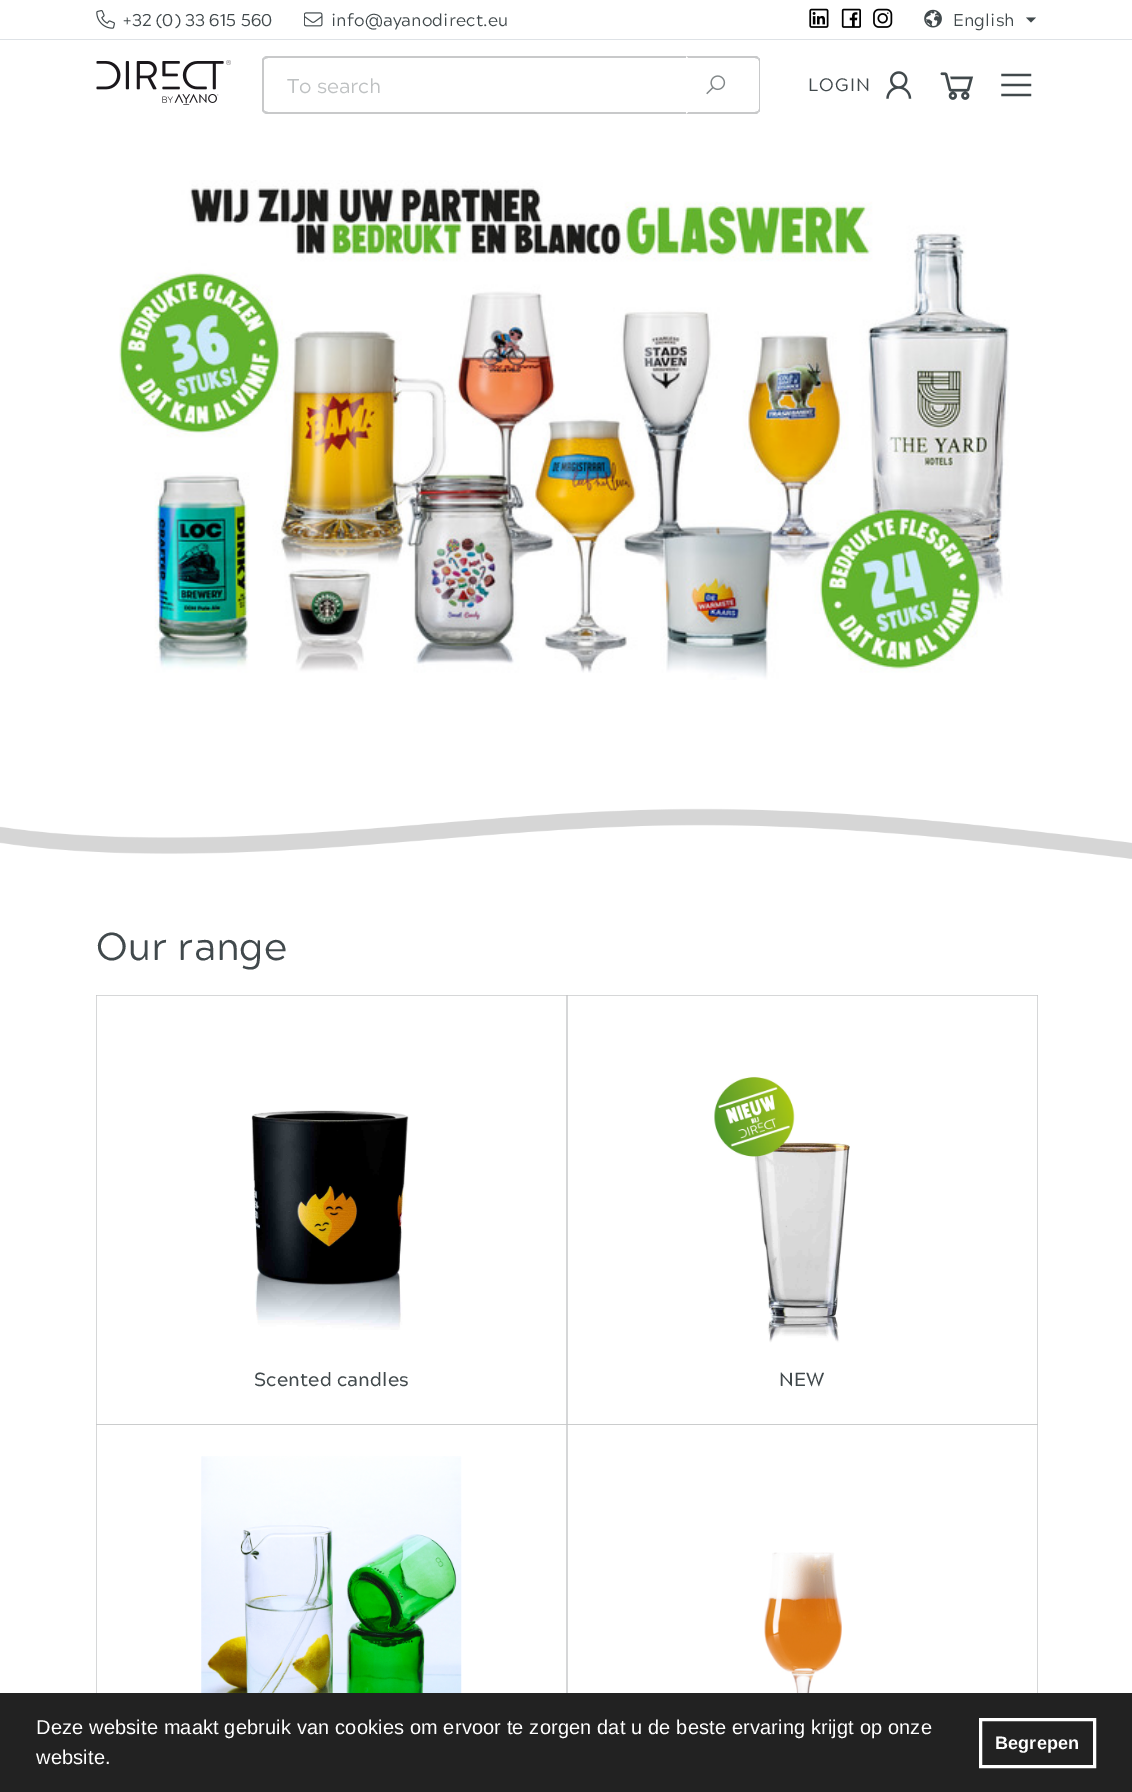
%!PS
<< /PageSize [1132 1792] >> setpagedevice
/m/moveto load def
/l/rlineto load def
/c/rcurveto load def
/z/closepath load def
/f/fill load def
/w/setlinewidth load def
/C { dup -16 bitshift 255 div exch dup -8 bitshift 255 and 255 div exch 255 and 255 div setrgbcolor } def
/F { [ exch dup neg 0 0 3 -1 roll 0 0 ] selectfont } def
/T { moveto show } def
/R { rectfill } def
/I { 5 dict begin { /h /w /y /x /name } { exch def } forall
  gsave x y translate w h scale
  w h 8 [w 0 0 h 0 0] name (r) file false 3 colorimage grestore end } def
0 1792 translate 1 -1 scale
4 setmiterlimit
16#FFFFFF C
0 0 1132 1792 R
16#DEE2E6 C
0 39 1132 1 R
(1.rgb) 96 10 19 19 I
/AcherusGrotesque-Regular 17 F
16#41494C C
123 26 m .15 0 (+32 \(0\) 33 615 560) ashow
(2.rgb) 304 12 19 15 I
331 26 m .15 0 (info@ayanodirect.eu) ashow
(3.rgb) 809 8 20 20 I
(4.rgb) 841 8 20 20 I
(5.rgb) 873 8 20 20 I
(6.rgb) 924 9 18 19 I
953 26 m .15 0 (English) ashow
1026 17.5 m 10 0 l -5 5 l z f
(7.rgb) 96 60 135 45 I
16#C8C9CA C
268 58 m -3 1 l -1 -2 l 2 -1 l 422 0 l -2 2 l z f
688 114 m -422 0 l -2 -1 l 1 -2 l 3 1 l 418 0 l z f
262 59 m 2 -2 l 1 2 l -1 1 l 0 50 l 1 1 l -1 2 l -2 -2 l z f
/AcherusGrotesque-Regular 20 F
16#BEC1C2 C
(To search) 287 93 T
16#C8C9CA C
688 58 m -2 -2 l 71 0 l 2 2 l -1 1 l -3 -1 l z f
760 109 m 0 -48 l 0 -1 0 -3 -1 -3 c -1 1 l 1 2 l 0 48 l -1 2 l 1 1 l 1 0 1 -2 1 -3 c z f
759 112 m -2 2 l -71 0 l 2 -2 l 67 0 l 3 -1 l z f
16#FFFFFF C
686 114 m 2 -2 l 0 -54 l -2 -2 l z f
(8.rgb) 706 75 20 20 I
/AcherusGrotesque-Regular 18 F
16#41494C C
808 91 m 1 0 (LOGIN) ashow
(9.rgb) 886 71 26 28 I
(10.rgb) 940 72 34 28 I
(11.rgb) 1001 73 31 24 I
(12.rgb) 119 180 891 500 I
(13.rgb) 0 808 1132 51 I
/AcherusGrotesque-Regular 38.75 F
96 960 m .15 0 (Our range) ashow
16#C8C9CA C
.6 w
96.3 995.3 471.4 429.4 rectstroke
(14.rgb) 251 1110 158 220 I
/AcherusGrotesque-Medium 19 F
16#41494C C
254 1386 m .15 0 (Scented candles) ashow
16#C8C9CA C
566.3 995.3 471.4 429.4 rectstroke
(15.rgb) 714 1076 136 267 I
16#41494C C
779 1386 m .15 0 (NEW) ashow
16#C8C9CA C
96.3 1424.3 471.4 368.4 rectstroke
(16.rgb) 201 1456 261 237 I
566.3 1424.3 471.4 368.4 rectstroke
(17.rgb) 764 1552 78 141 I
16#222222 C
0 1693 1132 99 R
/LiberationSans-Regular 20 F
16#FFFFFF C
36 1734 m .15 0 (Deze website maakt gebruik van cookies om ervoor te zorgen dat u de beste ervaring krijgt op onze) ashow
36 1764 m .15 0 (website.) ashow
3 w
980.5 1719.5 114 47 rectstroke
/LiberationSans-Bold 18 F
995 1749 m .15 0 (Begrepen) ashow
showpage
